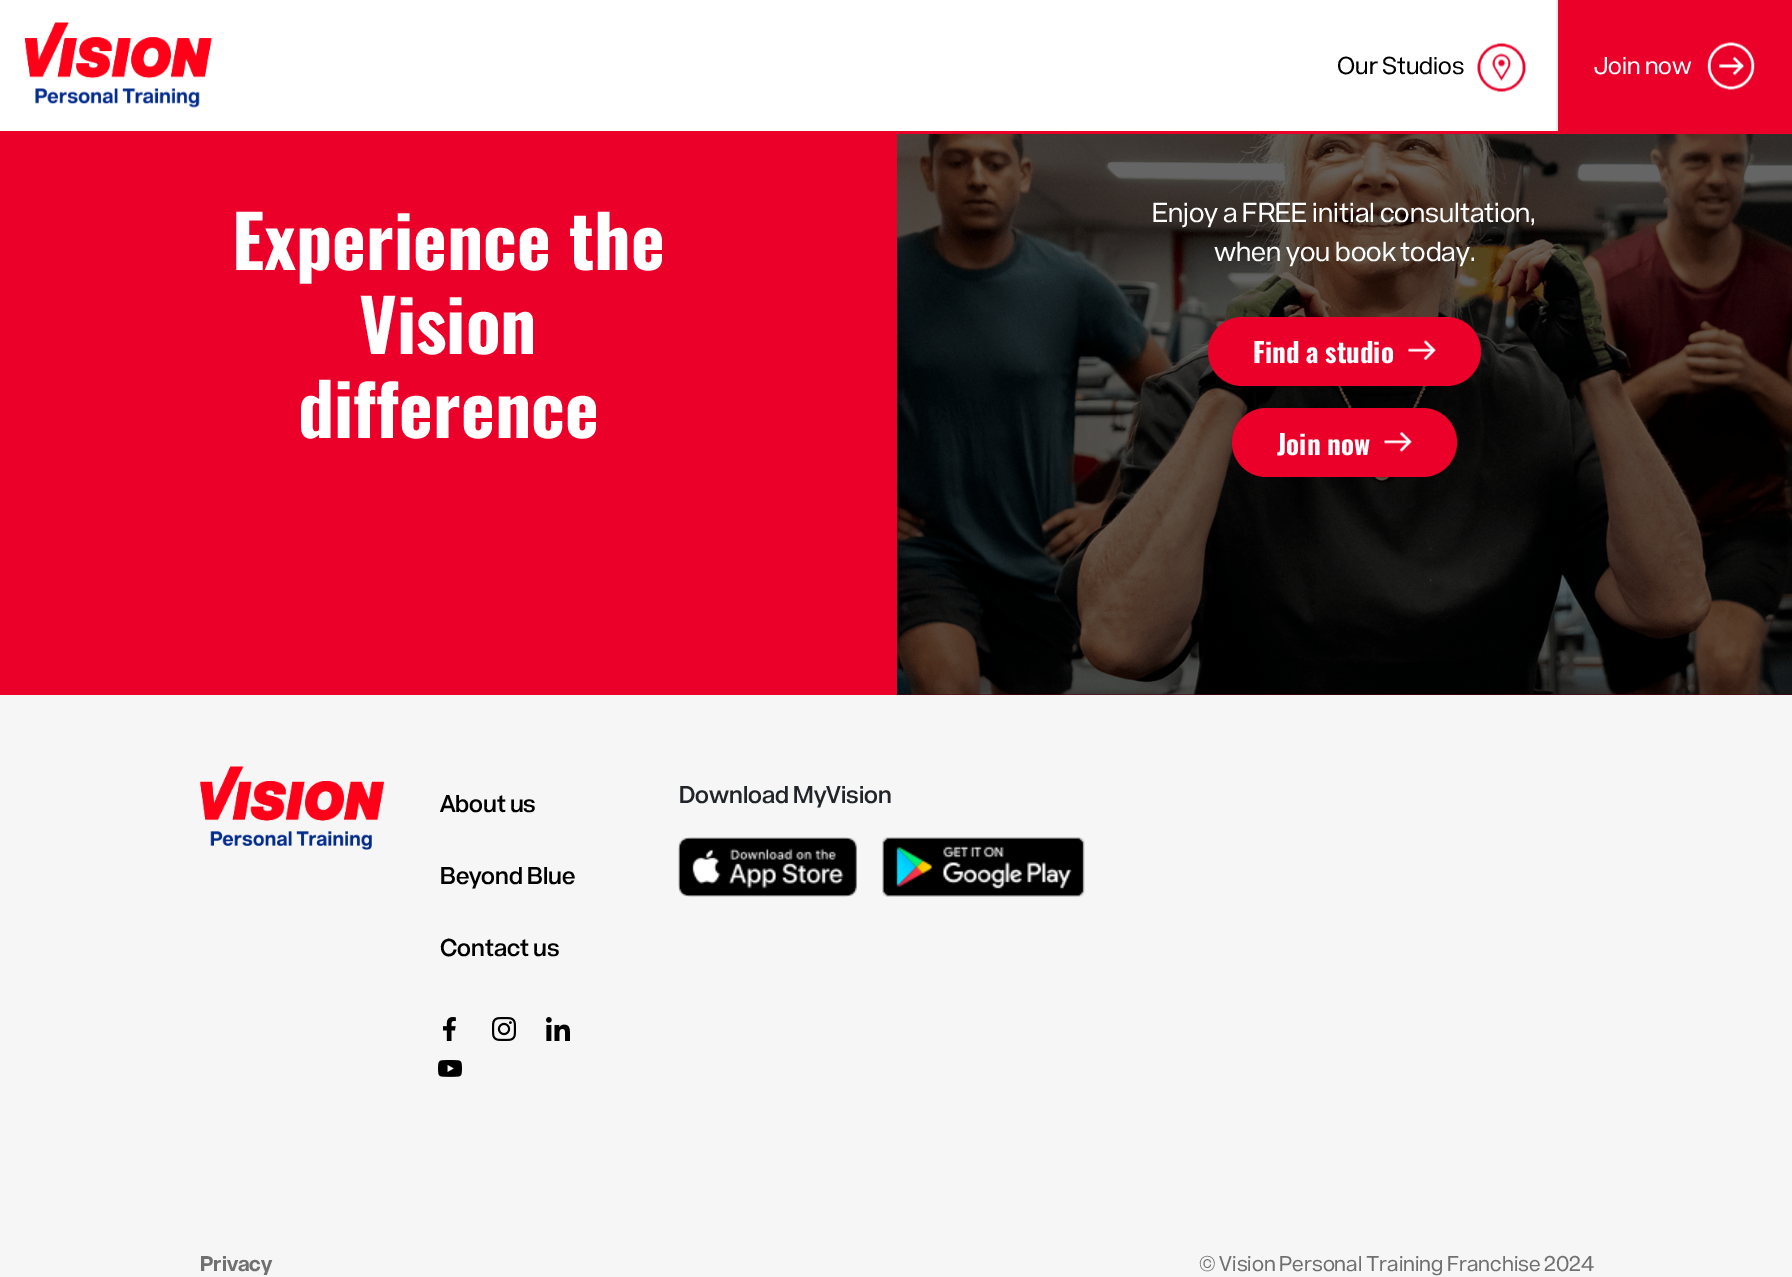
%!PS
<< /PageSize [1792 1277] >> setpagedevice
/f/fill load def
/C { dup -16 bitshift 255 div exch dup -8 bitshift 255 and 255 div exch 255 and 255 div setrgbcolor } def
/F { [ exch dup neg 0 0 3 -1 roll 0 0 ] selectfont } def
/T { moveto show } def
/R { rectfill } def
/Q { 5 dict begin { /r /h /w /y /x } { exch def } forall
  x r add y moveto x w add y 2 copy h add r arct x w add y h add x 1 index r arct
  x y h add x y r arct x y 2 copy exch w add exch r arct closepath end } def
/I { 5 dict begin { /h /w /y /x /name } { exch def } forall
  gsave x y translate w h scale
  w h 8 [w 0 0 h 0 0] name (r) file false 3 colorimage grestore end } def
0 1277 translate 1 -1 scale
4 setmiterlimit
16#F6F6F6 C
0 0 1792 1277 R
16#FFFFFF C
0 0 1556 131 R
(1.rgb) 24 22 188 86 I
16#EEEEEE C
1556 0 2 131 R
/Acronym-Regular 24 F
16#000000 C
(Our Studios) 1337 74 T
(2.rgb) 1477 43 49 49 I
16#EA0029 C
1558 0 234 131 R
16#FFFFFF C
(Join now) 1594 74 T
(3.rgb) 1707 42 48 48 I
16#EA0029 C
0 131 1792 3 R
0 134 897 561 R
16#5E0010 C
897 694 895 1 R
/Oswald-Bold 72 F
16#FFFFFF C
(Experience the) 232 270 T
(Vision) 359 354 T
(difference) 298 438 T
(4.rgb) 897 134 895 561 I
/Acronym-Regular 27 F
(Enjoy a FREE initial consultation,) 1152 222 T
(when you book today.) 1214 261 T
16#EA0029 C
1208 317 273 69 34.5 Q f
(5.rgb) 1408 340 28 20 I
/Oswald-Bold 27 F
16#FFFFFF C
(Find a studio) 1253 363 T
16#EA0029 C
1232 408 225 69 34.5 Q f
(6.rgb) 1384 432 28 20 I
16#FFFFFF C
(Join now) 1277 455 T
(7.rgb) 200 766 184 84 I
/Acronym-Medium 24 F
16#000000 C
(About us) 440 812 T
(Beyond Blue) 440 884 T
(Contact us) 440 956 T
(8.rgb) 443 1017 13 24 I
(9.rgb) 492 1017 24 24 I
(10.rgb) 546 1017 24 24 I
(11.rgb) 438 1060 24 17 I
16#212529 C
(Download MyVision) 679 803 T
(12.rgb) 678 837 180 60 I
(13.rgb) 882 837 203 60 I
/Acronym-SemiBold 21 F
16#707070 C
(Privacy) 200 1271 T
/Acronym-Regular 21 F
(© Vision Personal Training Franchise 2024) 1199 1271 T
showpage
